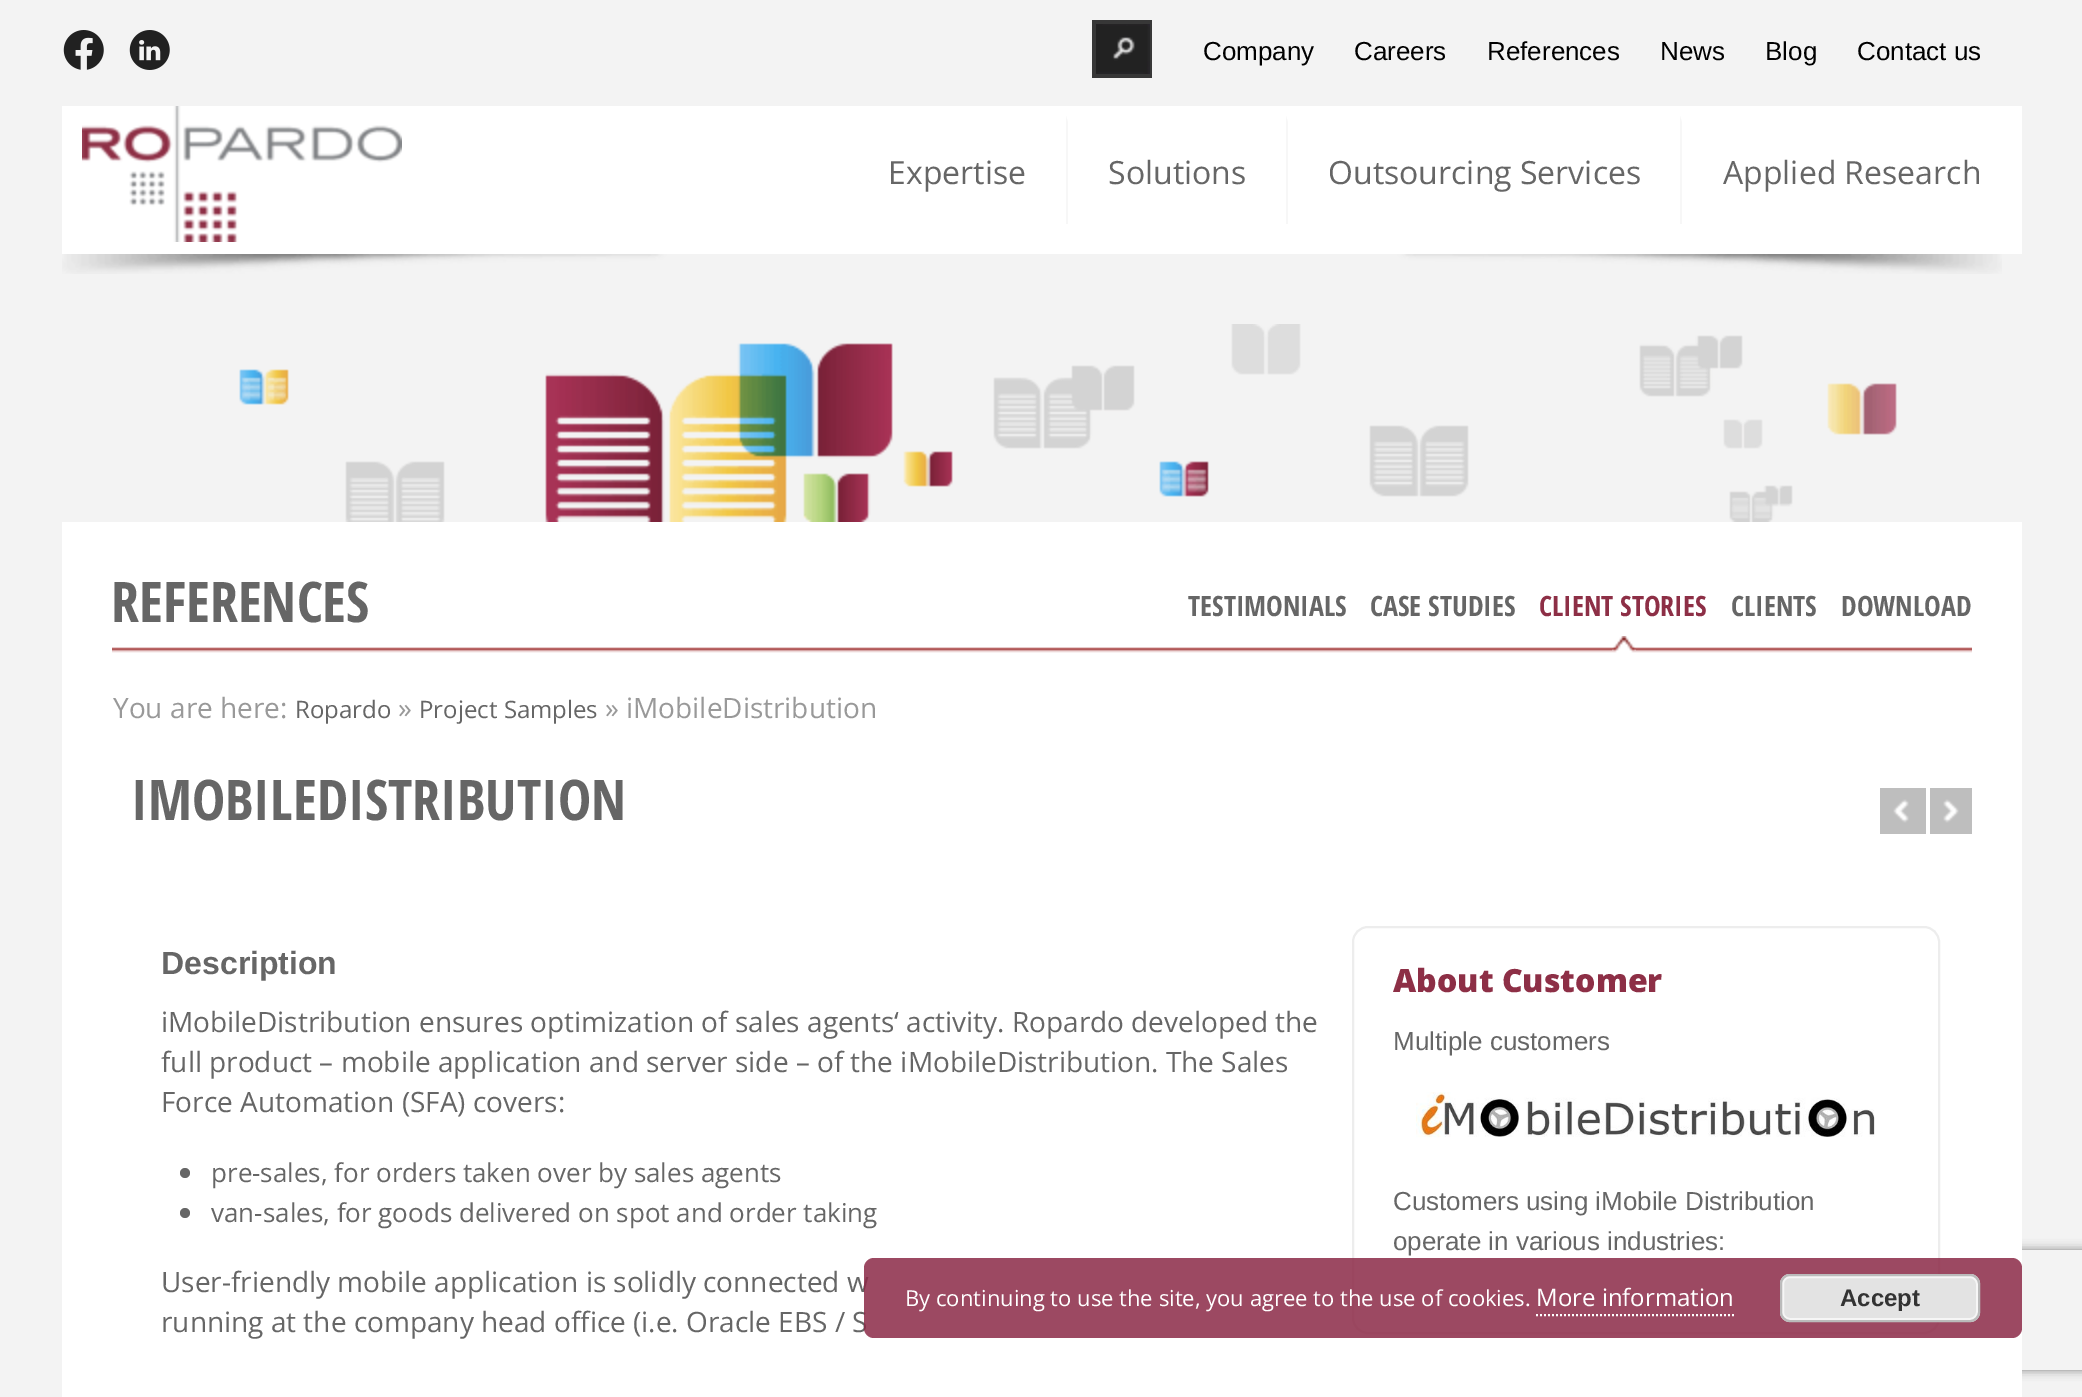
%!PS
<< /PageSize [2082 1397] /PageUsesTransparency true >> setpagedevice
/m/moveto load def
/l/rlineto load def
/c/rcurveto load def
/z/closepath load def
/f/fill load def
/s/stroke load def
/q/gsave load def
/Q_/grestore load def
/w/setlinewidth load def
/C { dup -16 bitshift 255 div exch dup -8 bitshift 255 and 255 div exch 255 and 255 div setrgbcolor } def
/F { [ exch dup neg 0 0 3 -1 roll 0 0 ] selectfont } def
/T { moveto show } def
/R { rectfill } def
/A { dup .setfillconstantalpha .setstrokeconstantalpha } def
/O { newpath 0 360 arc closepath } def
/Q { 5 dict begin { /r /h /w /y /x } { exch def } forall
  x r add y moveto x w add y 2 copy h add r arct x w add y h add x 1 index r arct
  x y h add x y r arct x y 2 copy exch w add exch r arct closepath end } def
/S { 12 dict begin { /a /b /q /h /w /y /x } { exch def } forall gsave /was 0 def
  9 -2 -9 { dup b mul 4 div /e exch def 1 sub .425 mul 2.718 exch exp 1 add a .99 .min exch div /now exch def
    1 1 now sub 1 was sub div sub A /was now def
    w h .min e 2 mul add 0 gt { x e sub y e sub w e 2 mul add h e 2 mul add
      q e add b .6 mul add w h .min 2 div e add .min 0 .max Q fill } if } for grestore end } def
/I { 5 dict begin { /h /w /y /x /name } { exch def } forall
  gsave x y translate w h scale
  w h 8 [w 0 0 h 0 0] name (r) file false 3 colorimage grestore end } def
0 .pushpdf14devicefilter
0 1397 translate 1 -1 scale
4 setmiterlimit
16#F3F3F3 C
0 0 2082 1397 R
(1.rgb) 63 30 41 40 I
(2.rgb) 129 30 41 40 I
16#373737 C
1092 20 60 58 R
(3.rgb) 1096 24 54 50 I
/LiberationSans-Regular 26 F
16#000000 C
(Company) 1203 60 T
(Careers) 1354 60 T
(References) 1487 60 T
(News) 1660 60 T
(Blog) 1765 60 T
(Contact us) 1857 60 T
16#FFFFFF C
62 106 1960 148 R
(4.rgb) 82 106 320 136 I
/OpenSans-Regular 32 F
16#666666 C
(Expertise) 888 184 T
16#F7F7F7 C
1066 224 m 0 -108 l 2 6 l 0 102 l z f
16#666666 C
(Solutions) 1108 184 T
16#F7F7F7 C
1286 224 m 0 -108 l 2 6 l 0 102 l z f
16#666666 C
(Outsourcing Services) 1328 184 T
16#F7F7F7 C
1680 224 m 0 -108 l 2 6 l 0 102 l z f
16#666666 C
(Applied Research) 1723 184 T
(5.rgb) 62 254 1940 20 I
(6.rgb) 239 324 1658 198 I
q
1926 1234 m 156 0 l 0 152 l -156 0 l z 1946 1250 m 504 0 l 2 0 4 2 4 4 c 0 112 l 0 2 -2 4 -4 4 c -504 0 l -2 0 -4 -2 -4 -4 c 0 -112 l 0 -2 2 -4 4 -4 c z eoclip newpath
16#808080 C
1942 1250 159 120 4 5 1 S
Q_
16#FFFFFF C
62 522 1960 875 R
/OpenSansCondensed-Bold 56 F
16#666666 C
(REFERENCES) 111 622 T
(7.rgb) 112 647 1860 6 I
/OpenSansCondensed-Bold 28 F
(TESTIMONIALS) 1188 616 T
(CASE STUDIES) 1370 616 T
(8.rgb) 1612 636 24 17 I
16#8D2F46 C
(CLIENT STORIES) 1539 616 T
16#666666 C
(CLIENTS) 1731 616 T
(DOWNLOAD) 1841 616 T
/OpenSans-Regular 28 F
16#999999 C
(You are here:) 113 718 T
/OpenSans-Regular 24 F
16#666666 C
(Ropardo) 295 718 T
/OpenSans-Regular 28 F
16#999999 C
(») 398 718 T
/OpenSans-Regular 24 F
16#666666 C
(Project Samples) 419 718 T
/OpenSans-Regular 28 F
16#999999 C
(» iMobileDistribution) 605 718 T
/OpenSansCondensed-Bold 56 F
16#666666 C
(IMOBILEDISTRIBUTION) 131 820 T
(9.rgb) 1880 788 46 46 I
(10.rgb) 1930 788 42 46 I
/LiberationSans-Bold 32 F
(Description) 161 974 T
/OpenSans-Regular 28 F
(iMobileDistribution ensures optimization of sales agents‘ activity. Ropardo developed the) 161 1032 T
(full product – mobile application and server side – of the iMobileDistribution. The Sales) 161 1072 T
(Force Automation \(SFA\) covers:) 161 1112 T
185 1173 5 O f
/OpenSans-Regular 26 F
(pre-sales, for orders taken over by sales agents) 211 1182 T
185 1213 5 O f
(van-sales, for goods delivered on spot and order taking) 211 1222 T
/OpenSans-Regular 28 F
(User-friendly mobile application is solidly connected w) 161 1292 T
(running at the company head office \(i.e. Oracle EBS / S) 161 1332 T
16#EDEDED C
2 w
1353 927 586 406 15 Q s
/OpenSans-ExtraBold 32 F
16#8D2F46 C
(About Customer) 1393 992 T
/LiberationSans-Regular 26 F
16#666666 C
(Multiple customers) 1393 1050 T
(11.rgb) 1416 1092 459 46 I
(Customers using iMobile Distribution) 1393 1210 T
(operate in various industries:) 1393 1250 T
0.85 A
16#8B2946 C
864 1258 1158 80 10 Q f
/OpenSans-Regular 22 F
1 A
16#FFFFFF C
(By continuing to use the site, you agree to the use of cookies.) 905 1306 T
/OpenSans-Regular 24 F
(More information) 1536 1306 T
[2 2] 0 setdash
1536 1315 m 198 0 l s
16#E3E3E3 C
1780 1274 200 48 10 Q f
16#F6F6F6 C
[] 0 setdash
1783 1277 194 42 7 Q s
16#BBBBBB C
1781 1275 198 46 9 Q s
/LiberationSans-Bold 24 F
16#333333 C
(Accept) 1840 1306 T
.poppdf14devicefilter showpage
